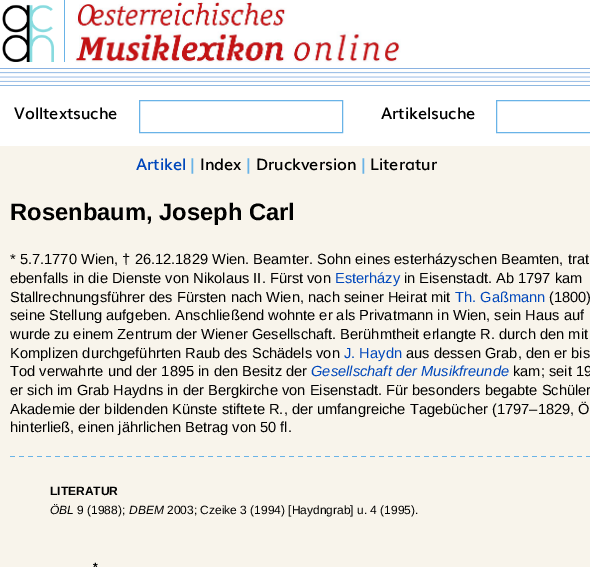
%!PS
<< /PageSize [590 567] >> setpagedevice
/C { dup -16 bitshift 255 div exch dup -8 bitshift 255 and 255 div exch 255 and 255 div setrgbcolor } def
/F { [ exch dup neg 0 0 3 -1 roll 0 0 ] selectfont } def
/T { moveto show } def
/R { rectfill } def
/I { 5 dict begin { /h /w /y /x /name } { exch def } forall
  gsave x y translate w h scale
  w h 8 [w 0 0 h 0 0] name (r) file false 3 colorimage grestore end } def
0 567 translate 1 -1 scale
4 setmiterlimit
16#FFFFFF C
0 0 590 567 R
(1.rgb) 2 4 52 58 I
16#69B3E7 C
64 0 1 62 R
(2.rgb) 75 0 326 62 I
(3.rgb) 0 68 590 18 I
/Muli-SemiBold 16 F
16#000000 C
(Volltextsuche) 14 119 T
16#69B3E7 C
139.5 100.5 203 32 rectstroke
16#000000 C
(Artikelsuche) 381 119 T
16#69B3E7 C
496.5 100.5 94 32 rectstroke
16#F8F4EB C
0 146 590 421 R
16#0047BB C
(Artikel) 136 170 T
16#69B3E7 C
(|) 190 170 T
16#000000 C
(Index) 200 170 T
16#69B3E7 C
(|) 246 170 T
16#000000 C
(Druckversion) 256 170 T
16#69B3E7 C
(|) 361 170 T
16#000000 C
(Literatur) 370 170 T
/LiberationSans-Bold 23.75 F
(Rosenbaum, Joseph Carl) 10 220 T
/LiberationSans-Regular 14.65 F
(* 5.7.1770 Wien, † 26.12.1829 Wien. Beamter. Sohn eines esterházyschen Beamten, trat) 10 264 T
(ebenfalls in die Dienste von Nikolaus II. Fürst von) 10 283 T
16#0047BB C
(Esterházy) 335 283 T
16#000000 C
(in Eisenstadt. Ab 1797 kam) 404 283 T
(Stallrechnungsführer des Fürsten nach Wien, nach seiner Heirat mit) 10 302 T
16#0047BB C
(Th. Gaßmann) 455 302 T
16#000000 C
(\(1800\)) 549 302 T
(seine Stellung aufgeben. Anschließend wohnte er als Privatmann in Wien, sein Haus auf) 10 320 T
(wurde zu einem Zentrum der Wiener Gesellschaft. Berühmtheit erlangte R. durch den mit) 10 339 T
(Komplizen durchgeführten Raub des Schädels von) 10 358 T
16#0047BB C
(J. Haydn) 344 358 T
16#000000 C
(aus dessen Grab, den er bis) 406 358 T
(Tod verwahrte und der 1895 in den Besitz der) 10 376 T
/LiberationSans-Italic 14.65 F
16#0047BB C
(Gesellschaft der Musikfreunde) 311 376 T
/LiberationSans-Regular 14.65 F
16#000000 C
(kam; seit 19) 513 376 T
(er sich im Grab Haydns in der Bergkirche von Eisenstadt. Für besonders begabte Schüler) 10 395 T
(Akademie der bildenden Künste stiftete R., der umfangreiche Tagebücher \(1797–1829, Ö) 10 414 T
(hinterließ, einen jährlichen Betrag von 50 fl.) 10 432 T
(4.rgb) 10 456 580 1 I
/LiberationSans-Bold 12 F
(LITERATUR) 50 495 T
/LiberationSans-Italic 12 F
(ÖBL) 50 514 T
/LiberationSans-Regular 12 F
(9 \(1988\);) 77 514 T
/LiberationSans-Italic 12 F
(DBEM) 129 514 T
/LiberationSans-Regular 12 F
(2003; Czeike 3 \(1994\) [Haydngrab] u. 4 \(1995\).) 167 514 T
/LiberationSans-Bold 12 F
(*) 93 571 T
showpage
